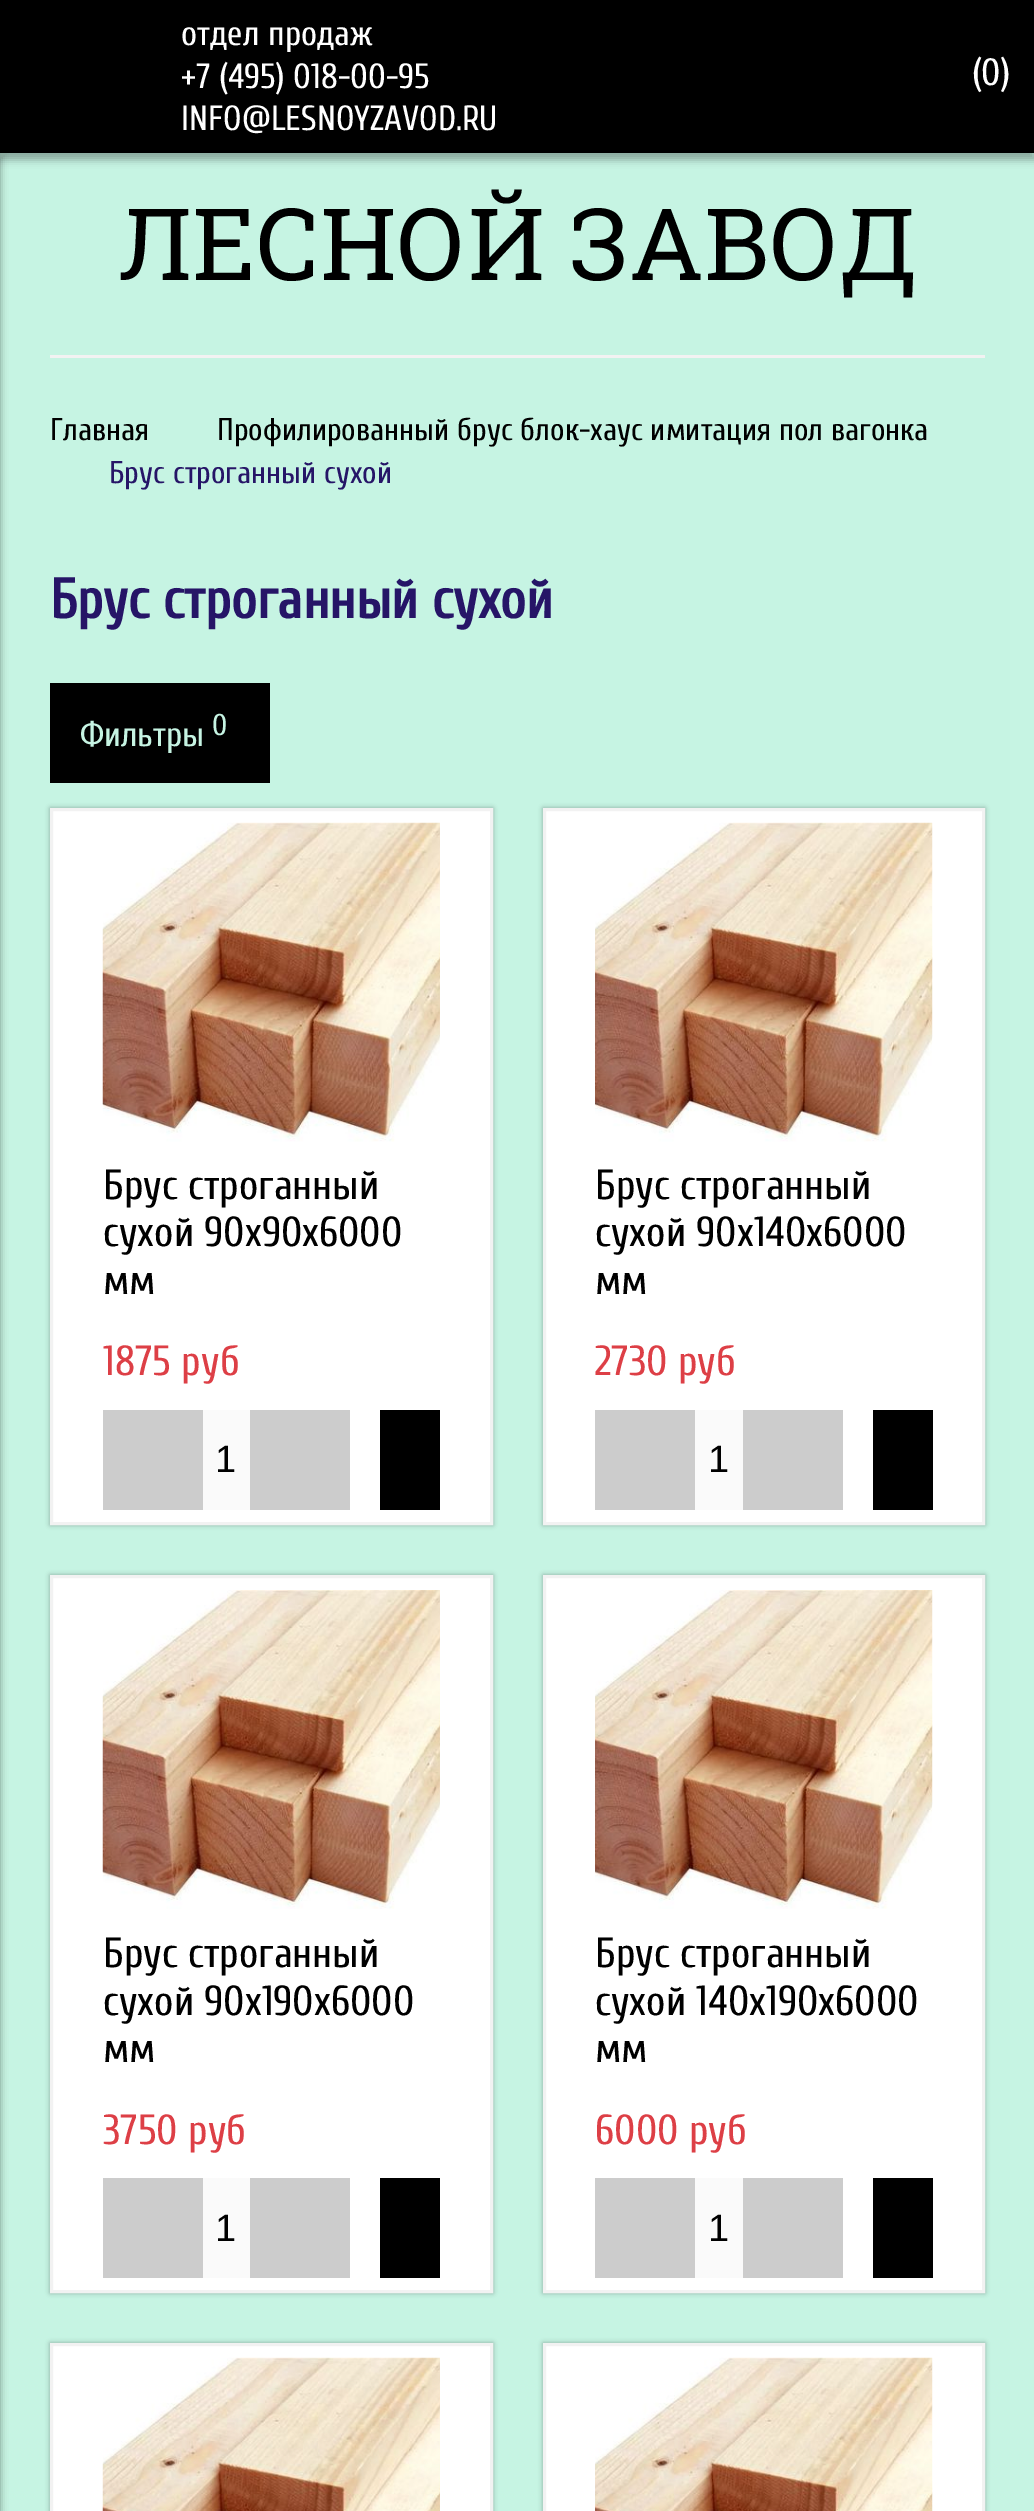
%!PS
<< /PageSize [1034 2511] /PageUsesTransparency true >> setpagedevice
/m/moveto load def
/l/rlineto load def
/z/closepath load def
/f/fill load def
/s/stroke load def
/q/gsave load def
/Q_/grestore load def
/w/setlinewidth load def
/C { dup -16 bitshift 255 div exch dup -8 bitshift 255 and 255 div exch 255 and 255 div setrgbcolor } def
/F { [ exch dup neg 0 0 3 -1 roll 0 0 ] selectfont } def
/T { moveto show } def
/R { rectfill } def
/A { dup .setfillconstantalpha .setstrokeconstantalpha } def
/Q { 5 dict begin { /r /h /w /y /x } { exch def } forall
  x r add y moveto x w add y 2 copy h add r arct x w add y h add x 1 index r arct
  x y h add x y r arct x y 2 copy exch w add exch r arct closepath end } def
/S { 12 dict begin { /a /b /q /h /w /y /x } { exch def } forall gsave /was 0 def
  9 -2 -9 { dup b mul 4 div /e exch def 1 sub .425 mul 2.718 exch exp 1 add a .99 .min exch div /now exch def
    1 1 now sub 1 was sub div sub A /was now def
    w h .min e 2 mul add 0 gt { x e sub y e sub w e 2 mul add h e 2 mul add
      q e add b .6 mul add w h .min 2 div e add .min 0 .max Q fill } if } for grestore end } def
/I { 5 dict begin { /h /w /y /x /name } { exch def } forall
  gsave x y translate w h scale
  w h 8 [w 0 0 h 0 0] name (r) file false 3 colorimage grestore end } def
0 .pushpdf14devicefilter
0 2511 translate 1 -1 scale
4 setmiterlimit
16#C6F4E3 C
0 0 1034 2511 R
16#000000 C
0 8 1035 152 0 4 .3 S
0 0 1034 153 R
/Cuprum-Regular 35 F
16#FFFFFF C
(отдел продаж) 181 45 T
(+7 \(495\) 018-00-95) 181 88 T
(INFO@LESNOYZAVOD.RU) 181 130 T
/Cuprum-Regular 38 F
(\(0\)) 972 85 T
16#000000 C
-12 133 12 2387 0 4 .4 S
/RobotoSlab-Regular 100 F
(ЛЕСНОЙ ЗАВОД) 118 280 T
16#F2F2F2 C
50 355 935 3 R
/Cuprum-Regular 31.5 F
16#000000 C
(Главная) 50 440 T
(Профилированный брус блок-хаус имитация пол вагонка) 217 440 T
16#261567 C
(Брус строганный сухой) 109 483 T
/Cuprum-Bold 56 F
(Брус строганный сухой) 50 618 T
16#000000 C
50 683 220 100 R
/Cuprum-Regular 35 F
16#C6F4E3 C
(Фильтры) 80 746 T
/Cuprum-Regular 30 F
(0) 212 735 T
16#000000 C
50 808 443 717 0 2.5 .3 S
16#FFFFFF C
51.5 809.5 m 440 0 l 0 714 l -440 0 l z q f Q_
16#F2F2F2 C
3 w
s
(1.rgb) 102 822 338 320 I
/Cuprum-Regular 42 F
16#000000 C
(Брус строганный) 103 1199 T
(сухой 90х90х6000) 103 1246 T
(мм) 103 1294 T
16#DD3F46 C
(1875 руб) 103 1375 T
16#CCCCCC C
103 1410 100 100 R
16#FAFAFA C
203 1410 47 100 R
/LiberationSans-Regular 38 F
16#000000 C
(1) 215 1472 T
16#CCCCCC C
250 1410 100 100 R
16#000000 C
380 1410 60 100 R
543 808 442 717 0 2.5 .3 S
16#FFFFFF C
544.5 809.5 m 439 0 l 0 714 l -439 0 l z q f Q_
16#F2F2F2 C
s
(2.rgb) 595 822 338 320 I
/Cuprum-Regular 42 F
16#000000 C
(Брус строганный) 595 1199 T
(сухой 90х140х6000) 595 1246 T
(мм) 595 1294 T
16#DD3F46 C
(2730 руб) 595 1375 T
16#CCCCCC C
595 1410 100 100 R
16#FAFAFA C
695 1410 48 100 R
/LiberationSans-Regular 38 F
16#000000 C
(1) 708 1472 T
16#CCCCCC C
743 1410 100 100 R
16#000000 C
873 1410 60 100 R
50 1575 443 718 0 2.5 .3 S
16#FFFFFF C
51.5 1576.5 m 440 0 l 0 715 l -440 0 l z q f Q_
16#F2F2F2 C
s
(3.rgb) 102 1590 338 319 I
/Cuprum-Regular 42 F
16#000000 C
(Брус строганный) 103 1967 T
(сухой 90х190х6000) 103 2015 T
(мм) 103 2062 T
16#DD3F46 C
(3750 руб) 103 2144 T
16#CCCCCC C
103 2178 100 100 R
16#FAFAFA C
203 2178 47 100 R
/LiberationSans-Regular 38 F
16#000000 C
(1) 215 2241 T
16#CCCCCC C
250 2178 100 100 R
16#000000 C
380 2178 60 100 R
543 1575 442 718 0 2.5 .3 S
16#FFFFFF C
544.5 1576.5 m 439 0 l 0 715 l -439 0 l z q f Q_
16#F2F2F2 C
s
(4.rgb) 595 1590 338 319 I
/Cuprum-Regular 42 F
16#000000 C
(Брус строганный) 595 1967 T
(сухой 140х190х6000) 595 2015 T
(мм) 595 2062 T
16#DD3F46 C
(6000 руб) 595 2144 T
16#CCCCCC C
595 2178 100 100 R
16#FAFAFA C
695 2178 48 100 R
/LiberationSans-Regular 38 F
16#000000 C
(1) 708 2241 T
16#CCCCCC C
743 2178 100 100 R
16#000000 C
873 2178 60 100 R
50 2343 443 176 0 2.5 .3 S
16#FFFFFF C
51.5 2344.5 m 440 0 l 0 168 l -440 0 l z q f Q_
16#F2F2F2 C
s
(5.rgb) 102 2357 338 154 I
16#000000 C
543 2343 442 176 0 2.5 .3 S
16#FFFFFF C
544.5 2344.5 m 439 0 l 0 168 l -439 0 l z q f Q_
16#F2F2F2 C
s
(6.rgb) 595 2357 338 154 I
.poppdf14devicefilter showpage
